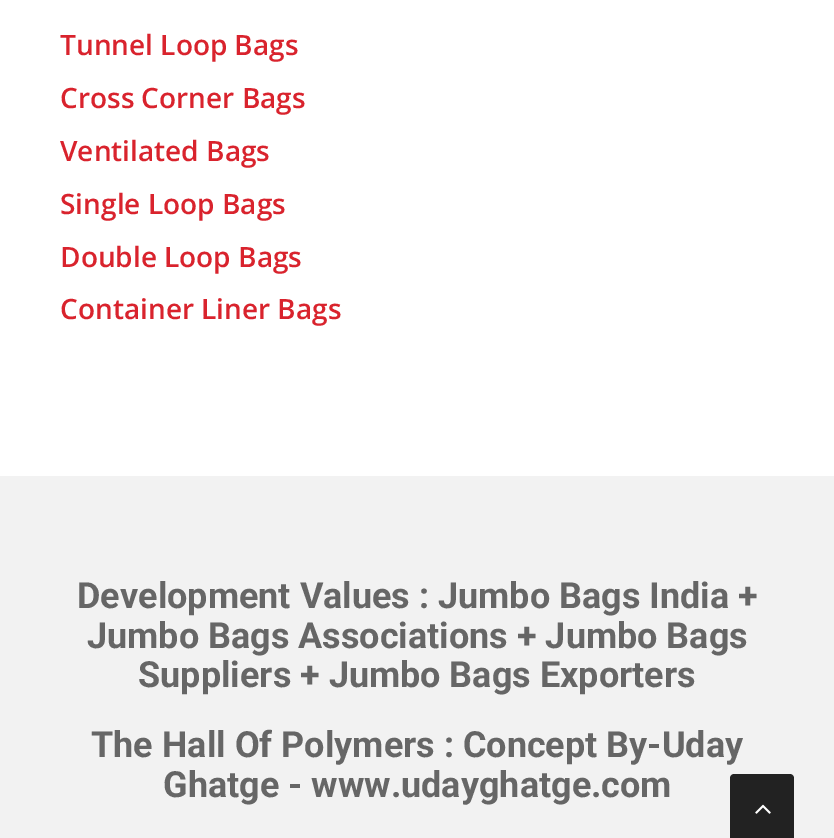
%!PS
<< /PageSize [834 838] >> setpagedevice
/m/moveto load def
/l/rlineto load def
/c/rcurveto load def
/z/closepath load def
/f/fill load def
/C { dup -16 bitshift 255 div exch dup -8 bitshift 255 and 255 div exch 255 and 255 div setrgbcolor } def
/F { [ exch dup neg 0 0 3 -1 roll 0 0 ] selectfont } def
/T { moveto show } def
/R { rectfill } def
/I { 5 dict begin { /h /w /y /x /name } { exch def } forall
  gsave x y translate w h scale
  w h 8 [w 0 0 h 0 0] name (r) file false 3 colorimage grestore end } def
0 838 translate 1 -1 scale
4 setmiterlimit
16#F2F2F2 C
0 0 834 838 R
16#FFFFFF C
0 0 834 476 R
/OpenSans-SemiBold 28 F
16#D9232D C
(Tunnel Loop Bags) 60 55 T
(Cross Corner Bags) 60 108 T
(Ventilated Bags) 60 161 T
(Single Loop Bags) 60 214 T
(Double Loop Bags) 60 267 T
(Container Liner Bags) 60 319 T
/Roboto-Bold 36 F
16#666666 C
(Development Values : Jumbo Bags India +) 77 608 T
(Jumbo Bags Associations + Jumbo Bags) 87 648 T
(Suppliers + Jumbo Bags Exporters) 138 687 T
(The Hall Of Polymers : Concept By-Uday) 91 757 T
(Ghatge - www.udayghatge.com) 163 797 T
16#222222 C
734 774 m 56 0 l 2 0 4 2 4 4 c 0 60 l -64 0 l 0 -60 l 0 -2 2 -4 4 -4 c z f
(1.rgb) 755 804 16 10 I
showpage
